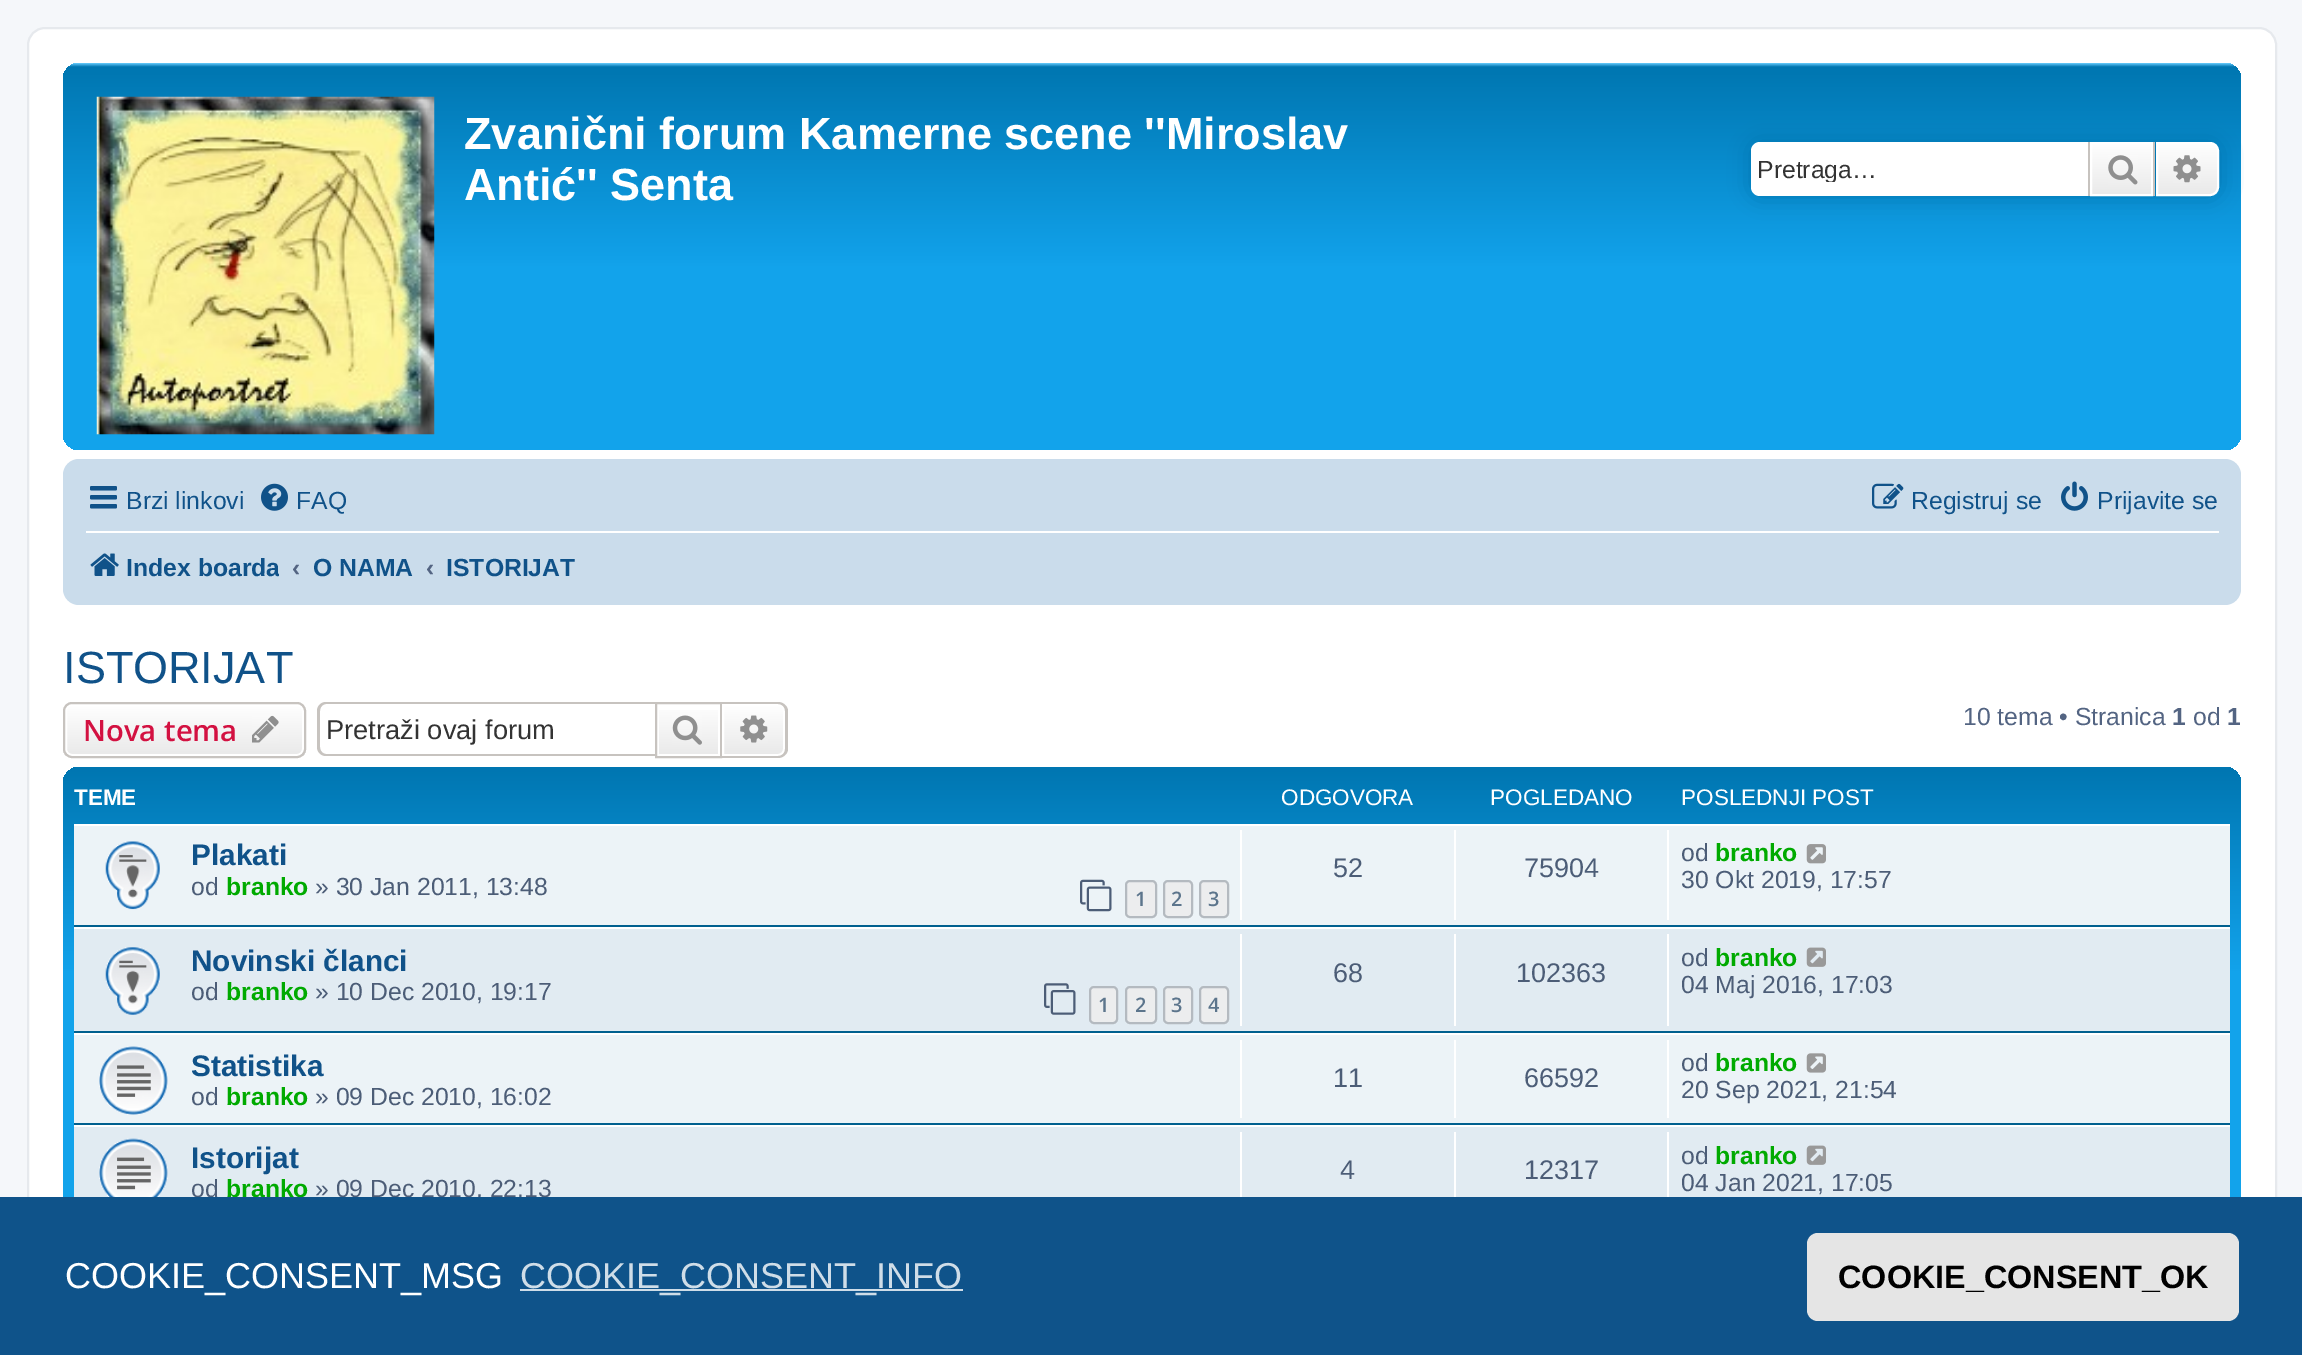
%!PS
<< /PageSize [2302 1355] /PageUsesTransparency true >> setpagedevice
/m/moveto load def
/l/rlineto load def
/c/rcurveto load def
/z/closepath load def
/f/fill load def
/s/stroke load def
/q/gsave load def
/Q_/grestore load def
/w/setlinewidth load def
/C { dup -16 bitshift 255 div exch dup -8 bitshift 255 and 255 div exch 255 and 255 div setrgbcolor } def
/F { [ exch dup neg 0 0 3 -1 roll 0 0 ] selectfont } def
/T { moveto show } def
/R { rectfill } def
/A { dup .setfillconstantalpha .setstrokeconstantalpha } def
/Q { 5 dict begin { /r /h /w /y /x } { exch def } forall
  x r add y moveto x w add y 2 copy h add r arct x w add y h add x 1 index r arct
  x y h add x y r arct x y 2 copy exch w add exch r arct closepath end } def
/S { 12 dict begin { /a /b /q /h /w /y /x } { exch def } forall gsave /was 0 def
  9 -2 -9 { dup b mul 4 div /e exch def 1 sub .425 mul 2.718 exch exp 1 add a .99 .min exch div /now exch def
    1 1 now sub 1 was sub div sub A /was now def
    w h .min e 2 mul add 0 gt { x e sub y e sub w e 2 mul add h e 2 mul add
      q e add b .6 mul add w h .min 2 div e add .min 0 .max Q fill } if } for grestore end } def
/I { 5 dict begin { /h /w /y /x /name } { exch def } forall
  gsave x y translate w h scale
  w h 8 [w 0 0 h 0 0] name (r) file false 3 colorimage grestore end } def
0 .pushpdf14devicefilter
0 1355 translate 1 -1 scale
4 setmiterlimit
16#F5F7FA C
0 0 2302 1355 R
16#FFFFFF C
28 28 2248 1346 17 Q q f Q_
16#E6E9ED C
2 w
s
q 63 63 2178 387 16 Q clip newpath
<< /ShadingType 2 /ColorSpace /DeviceRGB /Coords [1152 63 1152 450] /Extend [true true] /Function << /FunctionType 3 /Domain [0 1] /Functions [<< /FunctionType 2 /Domain [0 1] /C0 [.416 .808 1] /C1 [0 .463 .694] /N 1 >> << /FunctionType 2 /Domain [0 1] /C0 [0 .463 .694] /C1 [.071 .639 .922] /N 1 >> << /FunctionType 2 /Domain [0 1] /C0 [.071 .639 .922] /C1 [.071 .639 .922] /N 1 >>] /Bounds [.01 .53] /Encode [0 1 0 1 0 1] >> >> shfill Q_
(1.rgb) 96 96 339 339 I
/LiberationSans-Bold 45 F
16#FFFFFF C
(Zvanični forum Kamerne scene ''Miroslav) 464 149 T
(Antić'' Senta) 464 200 T
16#0075B0 C
1751 142 468 54 9 11 1 S
16#FFFFFF C
1760 142 m 328 0 l 0 54 l -328 0 l -5 0 -9 -4 -9 -9 c 0 -36 l 0 -5 4 -9 9 -9 c z f
q
1757 155 315 27 rectclip
/LiberationSans-Regular 24.75 F
16#333333 C
(Pretraga…) 1757 178 T
Q_
q 2092 144 m 59 0 l 0 50 l -59 0 l z clip newpath
<< /ShadingType 2 /ColorSpace /DeviceRGB /Coords [2122 142 2122 196] /Extend [true true] /Function << /FunctionType 2 /Domain [0 1] /C0 [1 1 1] /C1 [.914 .914 .914] /N 1 >> >> shfill Q_
2091 143 61 52 rectstroke
16#C7C3BF C
2153 142 2 54 R
2088 142 2 54 R
(2.rgb) 2108 155 30 30 I
q 2157 143 m 53 0 l 4.5 0 8 3.5 8 8 c 0 36 l 0 4.5 -3.5 8 -8 8 c -53 0 l z clip newpath
<< /ShadingType 2 /ColorSpace /DeviceRGB /Coords [2187 142 2187 196] /Extend [true true] /Function << /FunctionType 2 /Domain [0 1] /C0 [1 1 1] /C1 [.914 .914 .914] /N 1 >> >> shfill Q_
16#FFFFFF C
2157 143 m 53 0 l 4.5 0 8 3.5 8 8 c 0 36 l 0 4.5 -3.5 8 -8 8 c -53 0 l z s
(3.rgb) 2173 155 28 28 I
16#CADCEB C
63 459 2178 146 16 Q f
(4.rgb) 90 486 27 23 I
/LiberationSans-Regular 24.75 F
16#105289 C
(Brzi linkovi) 126 509 T
(5.rgb) 261 483 27 28 I
(FAQ) 296 509 T
(6.rgb) 1872 483 32 26 I
(Registruj se) 1911 509 T
(7.rgb) 2061 481 27 30 I
(Prijavite se) 2097 509 T
16#FFFFFF C
86 531 2133 2 R
(8.rgb) 90 553 29 23 I
q
86 540 193 54 rectclip
/LiberationSans-Bold 24.75 F
16#105289 C
(Index boarda) 126 576 T
Q_
/LiberationSans-Bold 24.75 F
16#536482 C
(‹) 292 576 T
16#105289 C
(O NAMA) 313 576 T
16#536482 C
(‹) 426 576 T
16#105289 C
(ISTORIJAT) 446 576 T
/LiberationSans-Regular 45 F
(ISTORIJAT) 63 683 T
/LiberationSans-Regular 24.75 F
16#536482 C
(10 tema • Stranica) 1963 725 T
/LiberationSans-Bold 24.75 F
(1) 2172 725 T
/LiberationSans-Regular 24.75 F
(od) 2193 725 T
/LiberationSans-Bold 24.75 F
(1) 2227 725 T
q
63 702 243 56 9 Q clip newpath
q 63 704 m 243 0 l 0 52 l -243 0 l z clip newpath
<< /ShadingType 2 /ColorSpace /DeviceRGB /Coords [185 704 185 756] /Extend [true true] /Function << /FunctionType 2 /Domain [0 1] /C0 [1 1 1] /C1 [.914 .914 .914] /N 1 >> >> shfill Q_
Q_
16#FFFFFF C
66 705 237 50 6 Q s
16#C7C3BF C
64 703 241 54 8 Q s
/OpenSans-SemiBold 29.25 F
16#D31141 C
(Nova tema) 83 741 T
(9.rgb) 252 715 27 28 I
16#C7C3BF C
326 702 m 329 0 l 0 54 l -329 0 l -5 0 -9 -4 -9 -9 c 0 -36 l 0 -5 4 -9 9 -9 c z 326 704 m 329 0 l 0 50 l -329 0 l -3 0 -6 -3 -6 -7 c 0 -36 l 0 -4 3 -7 6 -7 c z eofill
/LiberationSans-Regular 27.25 F
16#333333 C
(Pretraži ovaj forum) 326 739 T
q 659 710 m 59 0 l 0 44 l -59 0 l z clip newpath
<< /ShadingType 2 /ColorSpace /DeviceRGB /Coords [689 704 689 756] /Extend [true true] /Function << /FunctionType 2 /Domain [0 1] /C0 [1 1 1] /C1 [.914 .914 .914] /N 1 >> >> shfill Q_
16#C7C3BF C
656 703 65 54 rectstroke
(10.rgb) 672 715 30 30 I
q 723 705 m 55 0 l 3.5 0 6 2.5 6 6 c 0 38 l 0 3.5 -2.5 6 -6 6 c -55 0 l z clip newpath
<< /ShadingType 2 /ColorSpace /DeviceRGB /Coords [754 704 754 756] /Extend [true true] /Function << /FunctionType 2 /Domain [0 1] /C0 [1 1 1] /C1 [.914 .914 .914] /N 1 >> >> shfill Q_
16#FFFFFF C
723 705 m 55 0 l 3.5 0 6 2.5 6 6 c 0 38 l 0 3.5 -2.5 6 -6 6 c -55 0 l z s
16#C7C3BF C
722 702 m 56 0 l 5 0 10 4 10 9 c 0 38 l 0 5 -5 9 -10 9 c -56 0 l z 722 704 m 56 0 l 4 0 7 3 7 7 c 0 38 l 0 4 -3 7 -7 7 c -56 0 l z eofill
(11.rgb) 740 715 28 28 I
q 63 767 2178 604 16 Q clip newpath
<< /ShadingType 2 /ColorSpace /DeviceRGB /Coords [1152 767 1152 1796] /Extend [true true] /Function << /FunctionType 3 /Domain [0 1] /Functions [<< /FunctionType 2 /Domain [0 1] /C0 [0 .463 .694] /C1 [.071 .639 .922] /N 1 >> << /FunctionType 2 /Domain [0 1] /C0 [.071 .639 .922] /C1 [.071 .639 .922] /N 1 >>] /Bounds [.2] /Encode [0 1 0 1] >> >> shfill Q_
/LiberationSans-Bold 22.5 F
16#FFFFFF C
(TEME) 74 805 T
/LiberationSans-Regular 22.5 F
(ODGOVORA) 1281 805 T
(POGLEDANO) 1490 805 T
(POSLEDNJI POST) 1681 805 T
16#ECF3F7 C
74 826 2156 99 R
16#FFFFFF C
74 824 2156 2 R
16#00608F C
74 925 2156 2 R
(12.rgb) 105 841 55 69 I
/LiberationSans-Bold 29.75 F
16#105289 C
(Plakati) 191 865 T
/LiberationSans-Regular 24.75 F
16#4C5D77 C
(od) 191 895 T
/LiberationSans-Bold 24.75 F
16#00AA00 C
(branko) 226 895 T
/LiberationSans-Regular 24.75 F
16#4C5D77 C
(» 30 Jan 2011, 13:48) 315 895 T
(13.rgb) 1080 879 32 33 I
16#ECEDEE C
1126 881 30 36 4 Q q f Q_
16#B4BAC0 C
s
/OpenSans-SemiBold 20 F
16#5C758C C
(1) 1135 906 T
16#ECEDEE C
1164 881 28 36 4 Q q f Q_
16#B4BAC0 C
s
16#5C758C C
(2) 1171 906 T
16#ECEDEE C
1200 881 28 36 4 Q q f Q_
16#B4BAC0 C
s
16#5C758C C
(3) 1208 906 T
16#FFFFFF C
1240 830 2 90 R
/LiberationSans-Regular 27 F
16#4C5D77 C
(52) 1333 877 T
16#FFFFFF C
1454 830 2 90 R
16#4C5D77 C
(75904) 1524 877 T
16#FFFFFF C
1667 830 2 90 R
/LiberationSans-Regular 24.75 F
16#4C5D77 C
(od) 1681 861 T
/LiberationSans-Bold 24.75 F
16#00AA00 C
(branko) 1715 861 T
(14.rgb) 1806 844 20 20 I
/LiberationSans-Regular 24.75 F
16#4C5D77 C
(30 Okt 2019, 17:57) 1681 888 T
16#E1EBF2 C
74 929 2156 102 R
16#FFFFFF C
74 927 2156 2 R
16#00608F C
74 1031 2156 2 R
(15.rgb) 105 947 55 68 I
/LiberationSans-Bold 29.75 F
16#105289 C
(Novinski članci) 191 971 T
/LiberationSans-Regular 24.75 F
16#4C5D77 C
(od) 191 1000 T
/LiberationSans-Bold 24.75 F
16#00AA00 C
(branko) 226 1000 T
/LiberationSans-Regular 24.75 F
16#4C5D77 C
(» 10 Dec 2010, 19:17) 315 1000 T
(16.rgb) 1044 983 32 32 I
16#ECEDEE C
1090 987 27 36 4 Q q f Q_
16#B4BAC0 C
s
/OpenSans-SemiBold 20 F
16#5C758C C
(1) 1098 1012 T
16#ECEDEE C
1126 987 30 36 4 Q q f Q_
16#B4BAC0 C
s
16#5C758C C
(2) 1135 1012 T
16#ECEDEE C
1164 987 28 36 4 Q q f Q_
16#B4BAC0 C
s
16#5C758C C
(3) 1171 1012 T
16#ECEDEE C
1200 987 28 36 4 Q q f Q_
16#B4BAC0 C
s
16#5C758C C
(4) 1208 1012 T
16#FFFFFF C
1240 934 2 92 R
/LiberationSans-Regular 27 F
16#4C5D77 C
(68) 1333 982 T
16#FFFFFF C
1454 934 2 92 R
16#4C5D77 C
(102363) 1516 982 T
16#FFFFFF C
1667 934 2 92 R
/LiberationSans-Regular 24.75 F
16#4C5D77 C
(od) 1681 966 T
/LiberationSans-Bold 24.75 F
16#00AA00 C
(branko) 1715 966 T
(17.rgb) 1806 947 20 20 I
/LiberationSans-Regular 24.75 F
16#4C5D77 C
(04 Maj 2016, 17:03) 1681 993 T
16#ECF3F7 C
74 1035 2156 88 R
16#FFFFFF C
74 1033 2156 2 R
16#00608F C
74 1123 2156 2 R
(18.rgb) 99 1046 69 69 I
/LiberationSans-Bold 29.75 F
16#105289 C
(Statistika) 191 1076 T
/LiberationSans-Regular 24.75 F
16#4C5D77 C
(od) 191 1105 T
/LiberationSans-Bold 24.75 F
16#00AA00 C
(branko) 226 1105 T
/LiberationSans-Regular 24.75 F
16#4C5D77 C
(» 09 Dec 2010, 16:02) 315 1105 T
16#FFFFFF C
1240 1040 2 78 R
/LiberationSans-Regular 27 F
16#4C5D77 C
(11) 1333 1087 T
16#FFFFFF C
1454 1040 2 78 R
16#4C5D77 C
(66592) 1524 1087 T
16#FFFFFF C
1667 1040 2 78 R
/LiberationSans-Regular 24.75 F
16#4C5D77 C
(od) 1681 1071 T
/LiberationSans-Bold 24.75 F
16#00AA00 C
(branko) 1715 1071 T
(19.rgb) 1806 1053 20 20 I
/LiberationSans-Regular 24.75 F
16#4C5D77 C
(20 Sep 2021, 21:54) 1681 1098 T
16#E1EBF2 C
74 1127 2156 70 R
16#FFFFFF C
74 1125 2156 2 R
(20.rgb) 99 1138 69 59 I
/LiberationSans-Bold 29.75 F
16#105289 C
(Istorijat) 191 1168 T
/LiberationSans-Regular 24.75 F
16#4C5D77 C
(od) 191 1197 T
/LiberationSans-Bold 24.75 F
16#00AA00 C
(branko) 226 1197 T
/LiberationSans-Regular 24.75 F
16#4C5D77 C
(» 09 Dec 2010, 22:13) 315 1197 T
16#FFFFFF C
1240 1132 2 65 R
/LiberationSans-Regular 27 F
16#4C5D77 C
(4) 1340 1179 T
16#FFFFFF C
1454 1132 2 65 R
16#4C5D77 C
(12317) 1524 1179 T
16#FFFFFF C
1667 1132 2 65 R
/LiberationSans-Regular 24.75 F
16#4C5D77 C
(od) 1681 1164 T
/LiberationSans-Bold 24.75 F
16#00AA00 C
(branko) 1715 1164 T
(17.rgb) 1806 1145 20 20 I
/LiberationSans-Regular 24.75 F
16#4C5D77 C
(04 Jan 2021, 17:05) 1681 1191 T
16#0F538A C
0 1197 2302 158 R
/LiberationSans-Regular 36 F
16#FFFFFF C
(COOKIE_CONSENT_MSG) 65 1288 T
16#CFDDE8 C
520 1289 443 2 R
(COOKIE_CONSENT_INFO) 520 1288 T
16#E5E5E5 C
1807 1233 432 88 11 Q f
/LiberationSans-Bold 32.4 F
16#000000 C
(COOKIE_CONSENT_OK) 1838 1288 T
.poppdf14devicefilter showpage
